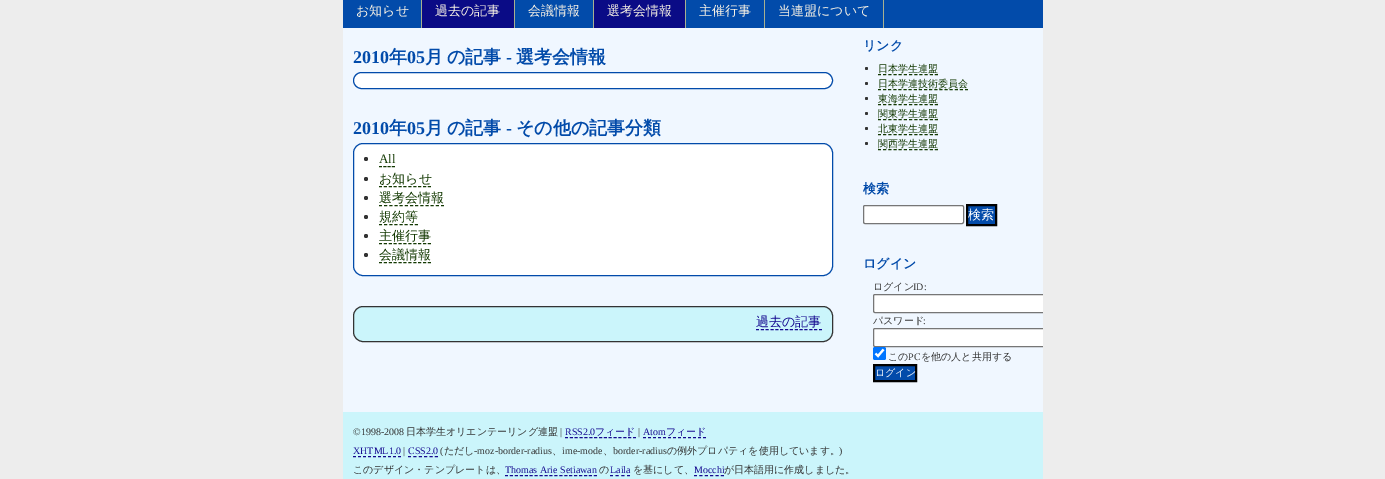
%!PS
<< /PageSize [1385 479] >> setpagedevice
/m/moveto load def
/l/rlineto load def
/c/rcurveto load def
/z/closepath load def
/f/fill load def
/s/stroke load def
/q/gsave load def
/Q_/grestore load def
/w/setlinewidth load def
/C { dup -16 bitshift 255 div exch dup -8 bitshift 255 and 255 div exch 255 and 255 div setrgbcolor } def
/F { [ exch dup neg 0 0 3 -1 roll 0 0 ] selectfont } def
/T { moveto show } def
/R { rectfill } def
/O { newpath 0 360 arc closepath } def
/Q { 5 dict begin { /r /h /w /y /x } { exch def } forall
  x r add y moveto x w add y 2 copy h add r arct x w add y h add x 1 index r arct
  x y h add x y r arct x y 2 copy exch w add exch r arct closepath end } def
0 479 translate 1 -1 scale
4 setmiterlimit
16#EDEDED C
0 0 1385 479 R
16#024BAA C
343 0 700 28 R
16#A8B090 C
421 0 1 28 R
/WenQuanYiZenHei-Medium 13 F
16#F8F2E5 C
(お知らせ) 356 15 T
16#0A0B86 C
422 0 92 28 R
16#A8B090 C
514 0 1 28 R
16#F8F2E5 C
(過去の記事) 435 15 T
16#A8B090 C
593 0 1 28 R
16#F8F2E5 C
(会議情報) 528 15 T
16#0A0B86 C
594 0 91 28 R
16#A8B090 C
685 0 1 28 R
16#F8F2E5 C
(選考会情報) 607 15 T
16#A8B090 C
764 0 1 28 R
16#F8F2E5 C
(主催行事) 699 15 T
16#A8B090 C
883 0 1 28 R
16#F8F2E5 C
(当連盟について) 778 15 T
16#F0F7FF C
343 28 700 384 R
/LiberationSerif-Bold 18 F
16#024BAA C
(2010) 353 63 T
/WenQuanYiZenHei-Bold 18 F
(年) 389 63 T
/LiberationSerif-Bold 18 F
(05) 407 63 T
/WenQuanYiZenHei-Bold 18 F
(月) 425 63 T
(の記事) 447 63 T
/LiberationSerif-Bold 18 F
(-) 506 63 T
/WenQuanYiZenHei-Bold 18 F
(選考会情報) 516 63 T
16#FFFFFF C
353.5 72.5 479 16 8 Q q f Q_
16#024BAA C
s
/LiberationSerif-Bold 18 F
(2010) 353 134 T
/WenQuanYiZenHei-Bold 18 F
(年) 389 134 T
/LiberationSerif-Bold 18 F
(05) 407 134 T
/WenQuanYiZenHei-Bold 18 F
(月) 425 134 T
(の記事) 447 134 T
/LiberationSerif-Bold 18 F
(-) 506 134 T
/WenQuanYiZenHei-Bold 18 F
(その他の記事分類) 516 134 T
16#FFFFFF C
353.5 143.5 479 132 9.5 Q q f Q_
16#024BAA C
s
16#333333 C
366 159 2 O f
/LiberationSerif-Regular 13 F
16#133902 C
(All) 379 163 T
[3 1.33] 0 setdash
379 166.5 m 16 0 l s
16#333333 C
366 179 2 O f
/WenQuanYiZenHei-Medium 13 F
16#133902 C
(お知らせ) 379 183 T
[3 1.9] 0 setdash
379 186.5 m 52 0 l s
16#333333 C
366 198 2 O f
16#133902 C
(選考会情報) 379 202 T
[3 2.17] 0 setdash
379 205.5 m 65 0 l s
16#333333 C
366 217 2 O f
16#133902 C
(規約等) 379 221 T
[3 2.14] 0 setdash
379 224.5 m 39 0 l s
16#333333 C
366 236 2 O f
16#133902 C
(主催行事) 379 240 T
[3 1.9] 0 setdash
379 243.5 m 52 0 l s
16#333333 C
366 255 2 O f
16#133902 C
(会議情報) 379 259 T
379 262.5 m 52 0 l s
16#CBF5FB C
353.5 306.5 479 35 9.5 Q q f Q_
16#333333 C
[] 0 setdash
s
16#150990 C
(過去の記事) 756 326 T
[3 1.85] 0 setdash
756 329.5 m 66 0 l s
/WenQuanYiZenHei-Bold 13 F
16#024BAA C
(リンク) 863 50 T
16#333333 C
866.5 68.5 1.5 O f
/WenQuanYiZenHei-Medium 10 F
16#133902 C
(日本学生連盟) 878 72 T
[3 2.18] 0 setdash
878 74.5 m 60 0 l s
16#333333 C
866.5 83.5 1.5 O f
16#133902 C
(日本学連技術委員会) 878 87 T
[3 2.12] 0 setdash
878 89.5 m 90 0 l s
16#333333 C
866.5 98.5 1.5 O f
16#133902 C
(東海学生連盟) 878 102 T
[3 2.18] 0 setdash
878 104.5 m 60 0 l s
16#333333 C
866.5 113.5 1.5 O f
16#133902 C
(関東学生連盟) 878 117 T
878 119.5 m 60 0 l s
16#333333 C
866.5 128.5 1.5 O f
16#133902 C
(北東学生連盟) 878 132 T
878 134.5 m 60 0 l s
16#333333 C
866.5 143.5 1.5 O f
16#133902 C
(関西学生連盟) 878 147 T
878 149.5 m 60 0 l s
/WenQuanYiZenHei-Bold 13 F
16#024BAA C
(検索) 863 193 T
16#FFFFFF C
863.5 205.5 100 18 1.5 Q q f Q_
16#767676 C
[] 0 setdash
s
16#024BAA C
967 205 m 29 0 l 0 20 l -29 0 l z q f Q_
16#000000 C
2 w
s
/WenQuanYiZenHei-Medium 13 F
16#FFFFFF C
(検索) 968 219 T
/WenQuanYiZenHei-Bold 13 F
16#024BAA C
(ログイン) 863 268 T
/WenQuanYiZenHei-Medium 10 F
16#333333 C
(ログイン) 873 290 T
/LiberationSerif-Regular 10 F
(ID:) 913 290 T
16#FFFFFF C
875 294 m 168 0 l 0 19 l -168 0 l -1 0 -2 -1 -2 -2 c 0 -15 l 0 -1 1 -2 2 -2 c z f
q
853 28 190 384 rectclip
16#767676 C
1 w
873.5 294.5 180 18 1.5 Q s
Q_
/WenQuanYiZenHei-Medium 10 F
16#333333 C
(パスワード) 873 324 T
/LiberationSerif-Regular 10 F
(:) 923 324 T
16#FFFFFF C
875 328 m 168 0 l 0 19 l -168 0 l -1 0 -2 -1 -2 -2 c 0 -15 l 0 -1 1 -2 2 -2 c z f
q
853 28 190 384 rectclip
16#767676 C
1 w
873.5 328.5 180 18 1.5 Q s
Q_
16#0075FF C
873 347 13 13 2 Q f
16#FFFFFF C
2.1 w
875.5 353.5 m 2.5 2.5 l 5.5 -6.5 l s
/WenQuanYiZenHei-Medium 10 F
16#333333 C
(この) 888 360 T
/LiberationSerif-Regular 10 F
(PC) 908 360 T
/WenQuanYiZenHei-Medium 10 F
(を他の人と共用する) 921 360 T
16#024BAA C
874 365 m 42 0 l 0 16 l -42 0 l z q f Q_
16#000000 C
2 w
s
16#FFFFFF C
(ログイン) 875 376 T
16#CBF5FB C
343 412 700 67 R
/LiberationSerif-Regular 10 F
16#333333 C
(©1998-2008) 353 435 T
/WenQuanYiZenHei-Medium 10 F
(日本学生オリエンテーリング連盟) 406 435 T
/LiberationSerif-Regular 10 F
(|) 560 435 T
16#150990 C
(RSS2.0) 565 435 T
1 w
[3 1.86] 0 setdash
565 437.5 m 71 0 l s
/WenQuanYiZenHei-Medium 10 F
(フィード) 595 435 T
/LiberationSerif-Regular 10 F
16#333333 C
(|) 638 435 T
16#150990 C
(Atom) 643 435 T
[3 2] 0 setdash
643 437.5 m 63 0 l s
/WenQuanYiZenHei-Medium 10 F
(フィード) 666 435 T
/LiberationSerif-Regular 10 F
(XHTML1.0) 353 454 T
353 456.5 m 48 0 l s
16#333333 C
(|) 403 454 T
16#150990 C
(CSS2.0) 408 454 T
[3 2.4] 0 setdash
408 456.5 m 30 0 l s
16#333333 C
(\() 440 454 T
/WenQuanYiZenHei-Medium 10 F
(ただし) 444 454 T
/LiberationSerif-Regular 10 F
(-moz-border-radius) 474 454 T
/WenQuanYiZenHei-Medium 10 F
(、) 552 454 T
/LiberationSerif-Regular 10 F
(ime-mode) 562 454 T
/WenQuanYiZenHei-Medium 10 F
(、) 603 454 T
/LiberationSerif-Regular 10 F
(border-radius) 613 454 T
/WenQuanYiZenHei-Medium 10 F
(の例外プロパティを使用しています。) 667 454 T
/LiberationSerif-Regular 10 F
(\)) 839 454 T
/WenQuanYiZenHei-Medium 10 F
(このデザイン・テンプレートは、) 353 473 T
/LiberationSerif-Regular 10 F
16#150990 C
(Thomas Arie Setiawan) 505 473 T
[3 1.94] 0 setdash
505 475.5 m 92 0 l s
/WenQuanYiZenHei-Medium 10 F
16#333333 C
(の) 599 473 T
/LiberationSerif-Regular 10 F
16#150990 C
(Laila) 610 473 T
[3 2.67] 0 setdash
610 475.5 m 20 0 l s
/WenQuanYiZenHei-Medium 10 F
16#333333 C
(を基にして、) 633 473 T
/LiberationSerif-Regular 10 F
16#150990 C
(Mocchi) 694 473 T
[3 2.4] 0 setdash
694 475.5 m 30 0 l s
/WenQuanYiZenHei-Medium 10 F
16#333333 C
(が日本語用に作成しました。) 724 473 T
showpage
